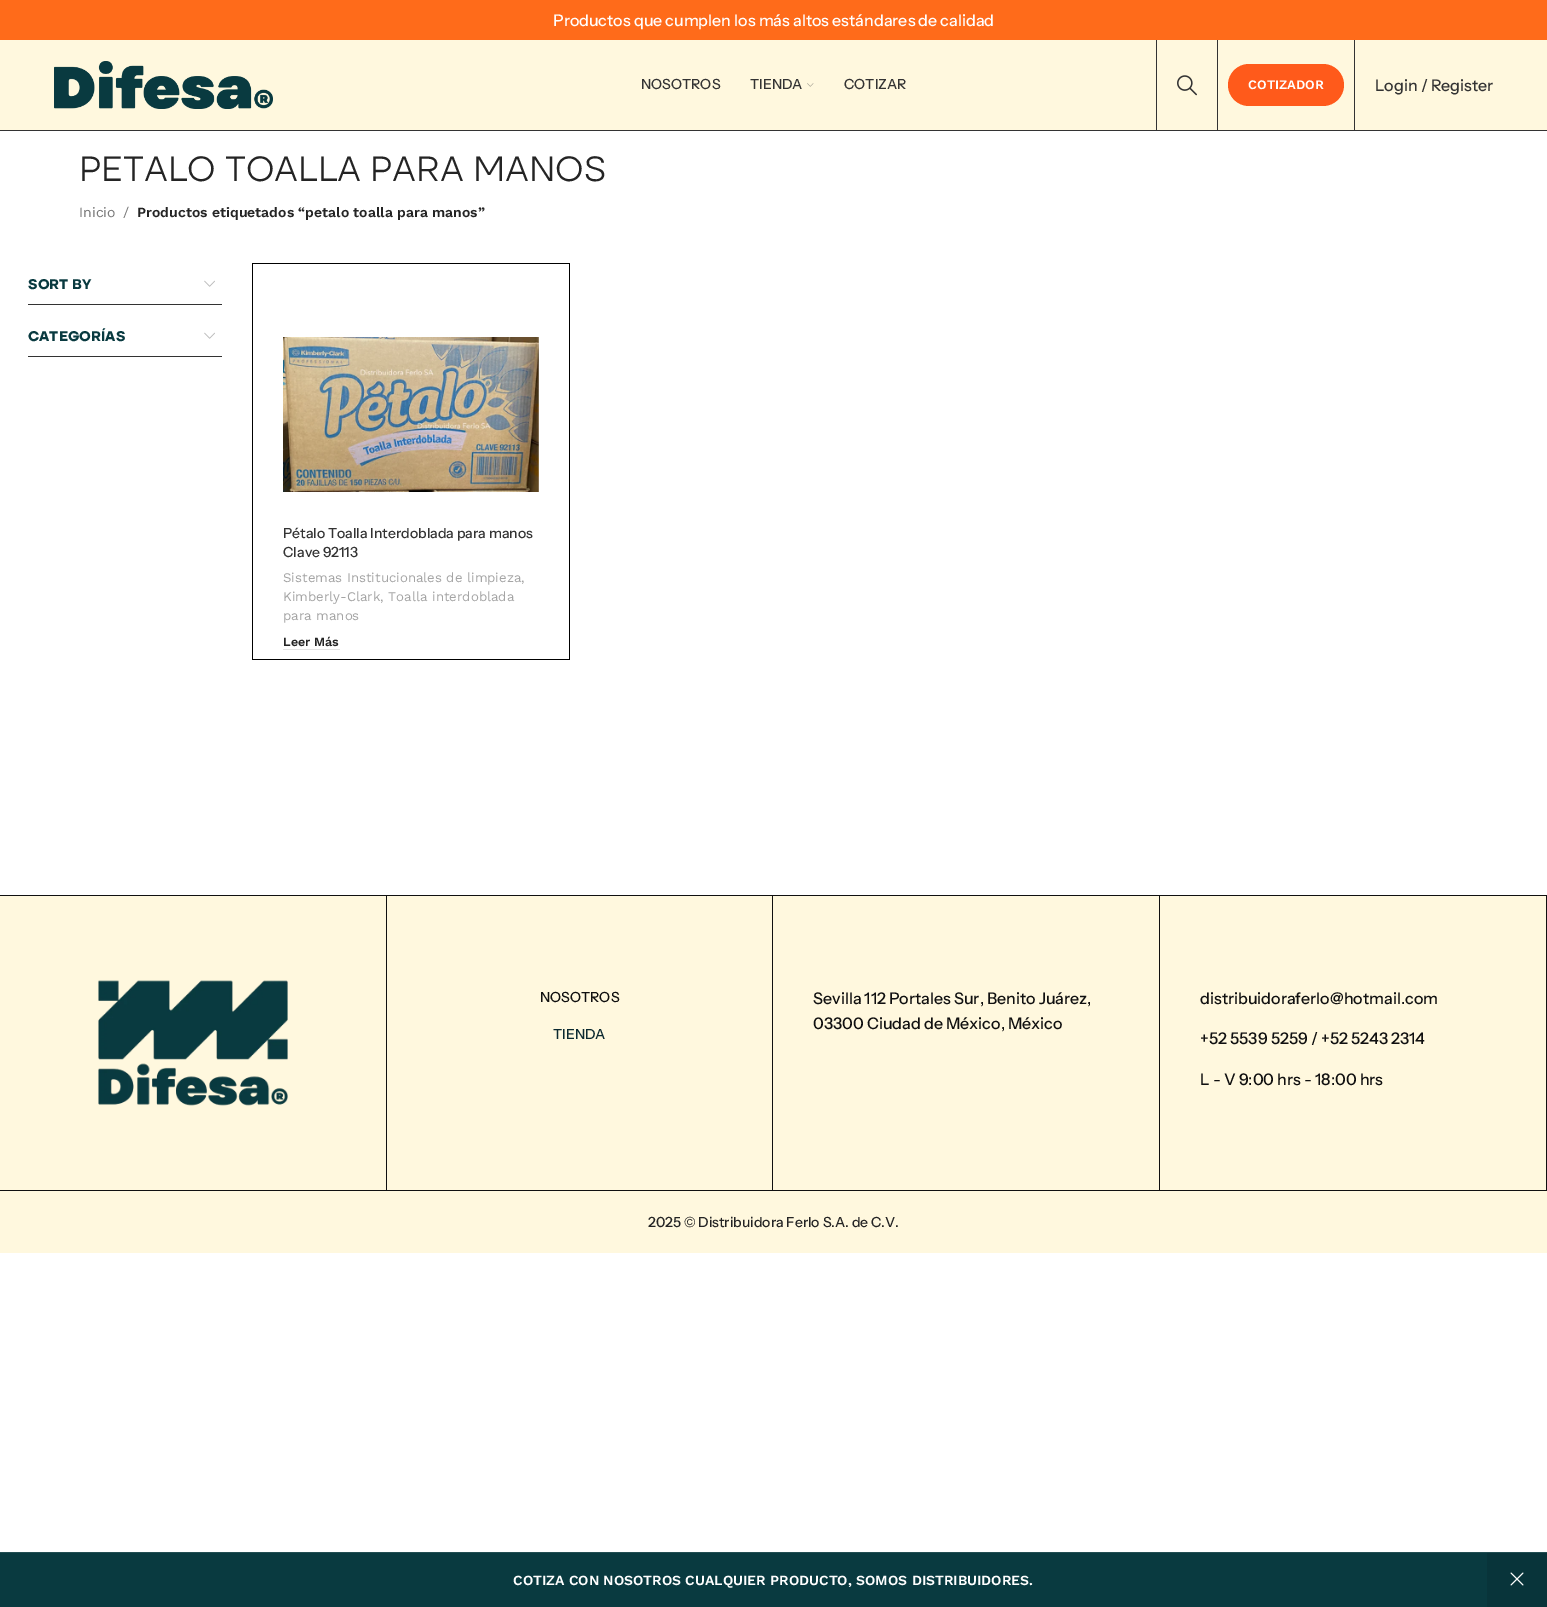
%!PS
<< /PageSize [1547 1607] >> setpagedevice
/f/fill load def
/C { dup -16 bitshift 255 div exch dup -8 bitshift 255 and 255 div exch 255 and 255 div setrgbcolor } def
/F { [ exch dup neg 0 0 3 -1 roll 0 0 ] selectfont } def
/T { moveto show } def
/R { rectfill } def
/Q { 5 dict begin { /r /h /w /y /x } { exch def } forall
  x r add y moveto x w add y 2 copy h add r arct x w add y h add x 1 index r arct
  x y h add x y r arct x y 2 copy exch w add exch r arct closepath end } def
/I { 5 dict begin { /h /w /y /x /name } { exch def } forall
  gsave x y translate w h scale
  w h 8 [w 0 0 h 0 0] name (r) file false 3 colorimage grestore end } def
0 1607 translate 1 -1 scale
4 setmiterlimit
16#FFFFFF C
0 0 1547 1607 R
16#FF6B1A C
0 0 1547 40 R
/InstrumentSans-Medium 16 F
16#FFFFFF C
(Productos que cumplen los más altos estándares de calidad) 553 26 T
16#FFF8DE C
0 40 1547 90 R
16#333333 C
0 130 1547 1 R
(1.rgb) 54 61 219 48 I
/InstrumentSans-Medium 14 F
(NOSOTROS) 641 89 T
(TIENDA) 750 89 T
(2.rgb) 807 83 7 4 I
(COTIZAR) 844 89 T
1156 40 1 90 R
(3.rgb) 1177 75 20 21 I
1217 40 1 90 R
16#FF5A1B C
1228 64 116 42 21 Q f
/WorkSans-SemiBold 13 F
16#FFFFFF C
(COTIZADOR) 1248 89 T
16#333333 C
1354 40 1 90 R
/InstrumentSans-Medium 16 F
(Login / Register) 1375 91 T
/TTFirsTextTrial-Regular 35 F
16#242424 C
(PETALO TOALLA PARA MANOS) 79 181 T
/WorkSans-Regular 14 F
16#767676 C
(Inicio) 79 217 T
(/) 123 217 T
/WorkSans-SemiBold 14 F
16#242424 C
(Productos etiquetados “petalo toalla para manos”) 137 217 T
16#333333 C
28 304 194 1 R
/TTFirsTextTrial-Bold 14 F
16#093A40 C
(SORT BY) 28 289 T
(4.rgb) 204 280 11 7 I
16#333333 C
28 356 194 1 R
16#093A40 C
(CATEGORÍAS) 28 341 T
(4.rgb) 204 332 11 7 I
16#000000 C
252 263 1 397 R
253 263 317 1 R
569 263 1 397 R
253 659 317 1 R
(5.rgb) 283 337 256 155 I
/InstrumentSans-Medium 14 F
16#333333 C
(Pétalo Toalla Interdoblada para manos) 283 538 T
(Clave 92113) 283 557 T
/WorkSans-Regular 13.25 F
16#A5A5A5 C
(Sistemas Institucionales de limpieza,) 283 582 T
(Kimberly-Clark, Toalla interdoblada) 283 601 T
(para manos) 283 620 T
16#E4E4E4 C
283 649 57 1 R
/WorkSans-SemiBold 12.5 F
16#242424 C
(Leer Más) 283 646 T
16#FFF8DE C
0 896 1547 357 R
16#101010 C
0 895 1547 1 R
0 1190 1547 1 R
386 896 1 294 R
(6.rgb) 98 980 190 126 I
772 896 1 294 R
/InstrumentSans-Medium 14 F
(NOSOTROS) 540 1002 T
16#0B2930 C
(TIENDA) 553 1039 T
16#101010 C
1159 896 1 294 R
/InstrumentSans-Medium 16 F
(Sevilla 112 Portales Sur, Benito Juárez,) 813 1004 T
(03300 Ciudad de México, México) 813 1029 T
1546 896 1 294 R
(distribuidoraferlo@hotmail.com) 1200 1004 T
(+52 5539 5259 / +52 5243 2314) 1200 1044 T
(L - V 9:00 hrs - 18:00 hrs) 1200 1085 T
/InstrumentSans-Medium 14 F
16#242424 C
(2025 © Distribuidora Ferlo S.A. de C.V.) 648 1227 T
16#093A40 C
0 1553 1487 54 R
16#224E53 C
0 1552 1547 1 R
/WorkSans-SemiBold 14 F
16#FFFFFF C
(COTIZA CON NOSOTROS CUALQUIER PRODUCTO, SOMOS DISTRIBUIDORES.) 513 1585 T
16#08343A C
1487 1553 60 54 R
(7.rgb) 1510 1572 14 14 I
showpage
